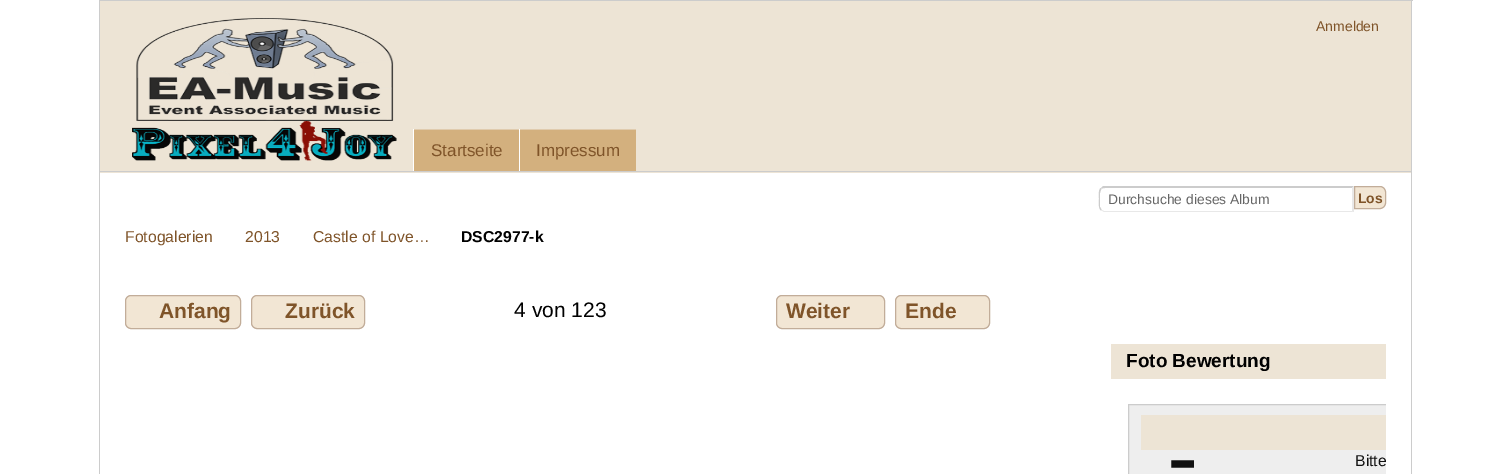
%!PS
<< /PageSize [1511 474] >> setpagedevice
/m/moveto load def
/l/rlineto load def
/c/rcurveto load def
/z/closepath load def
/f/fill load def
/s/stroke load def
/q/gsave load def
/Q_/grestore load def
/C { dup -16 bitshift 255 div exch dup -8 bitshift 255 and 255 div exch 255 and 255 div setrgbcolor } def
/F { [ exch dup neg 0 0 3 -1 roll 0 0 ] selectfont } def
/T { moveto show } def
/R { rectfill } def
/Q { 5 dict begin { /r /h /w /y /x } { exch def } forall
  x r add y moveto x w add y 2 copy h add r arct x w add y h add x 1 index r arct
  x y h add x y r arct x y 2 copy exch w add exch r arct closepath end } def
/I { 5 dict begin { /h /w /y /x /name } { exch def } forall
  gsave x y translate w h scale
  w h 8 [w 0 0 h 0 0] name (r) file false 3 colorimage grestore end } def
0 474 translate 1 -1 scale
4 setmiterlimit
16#FFFFFF C
0 0 1511 474 R
16#CCCCCC C
99 0 1314 1 R
1411 0 1 474 R
99 0 1 474 R
16#EDE4D5 C
100 1 1311 172 R
16#CCCCCC C
100 171 1311 1 R
(1.rgb) 132 18 265 143 I
/LiberationSans-Regular 14 F
16#7F5429 C
(Anmelden) 1316 31 T
16#D3B07E C
414 130 105 41 R
16#E0CBAE C
413 129 223 1 R
16#FFFFFF C
413 129 1 42 R
/LiberationSans-Regular 17 F
16#7F5429 C
(Startseite) 431 156 T
16#D3B07E C
520 130 116 41 R
16#FFFFFF C
519 129 1 42 R
16#7F5429 C
(Impressum) 536 156 T
16#CCCCCC C
1105 188 m -2 0 -3 0 -3 1 c -1 -1 l 2 -2 l 251 0 l -2 2 l z f
16#E8E8E8 C
1354 186 m 0 26 l -1 0 l -1 -1 l 0 -23 l z f
1353 212 m -249 0 l -3 -2 l 1 0 l 2 1 l 248 0 l z f
16#CCCCCC C
1101 210.5 m -3 -2.5 -2 -8 -2 -11.5 c 0 -3.5 -1 -8 1.5 -11 c 1 1 l -1 1 -1 2.5 -1.5 4 c -.5 2.5 0 11.5 0 14 c 1.5 2.5 l z f
/LiberationSans-Regular 13.9 F
16#666666 C
(Durchsuche dieses Album) 1108 204 T
16#F2E6D4 C
1354.5 186.5 m 25.5 0 l 3 0 5.5 2.5 5.5 5.5 c 0 11 l 0 3 -2.5 5.5 -5.5 5.5 c -25.5 0 l z q f Q_
16#C2AD99 C
s
/LiberationSans-Bold 13.9 F
16#7F5429 C
(Los) 1358 203 T
/LiberationSans-Regular 15.75 F
(Fotogalerien) 125 242 T
(2013) 245 242 T
(Castle of Love…) 313 242 T
/LiberationSans-Bold 15.75 F
16#000000 C
(DSC2977-k) 461 242 T
16#F2E6D4 C
125.5 295.5 115 33 5.5 Q q f Q_
16#C2AD99 C
s
/LiberationSans-Bold 21 F
16#7F5429 C
(Anfang) 159 318 T
16#F2E6D4 C
251.5 295.5 113 33 5.5 Q q f Q_
16#C2AD99 C
s
16#7F5429 C
(Zurück) 285 318 T
/LiberationSans-Regular 21 F
16#000000 C
(4 von 123) 514 317 T
16#F2E6D4 C
776.5 295.5 108 33 5.5 Q q f Q_
16#C2AD99 C
s
/LiberationSans-Bold 21 F
16#7F5429 C
(Weiter) 786 318 T
16#F2E6D4 C
895.5 295.5 94 33 5.5 Q q f Q_
16#C2AD99 C
s
16#7F5429 C
(Ende) 905 318 T
16#EDE4D5 C
1111 344 275 35 R
/LiberationSans-Bold 19 F
16#000000 C
(Foto Bewertung) 1126 367 T
16#EEEEEE C
1129 405 257 69 R
q
1111 344 275 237 rectclip
16#CCCCCC C
1128.5 404.5 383 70 rectstroke
Q_
/LiberationSans-Regular 94 F
16#111111 C
(-) 1167 489 T
16#EDE4D5 C
1141 415 245 35 R
/LiberationSans-Regular 15.75 F
16#111111 C
(Bitte) 1355 466 T
showpage
